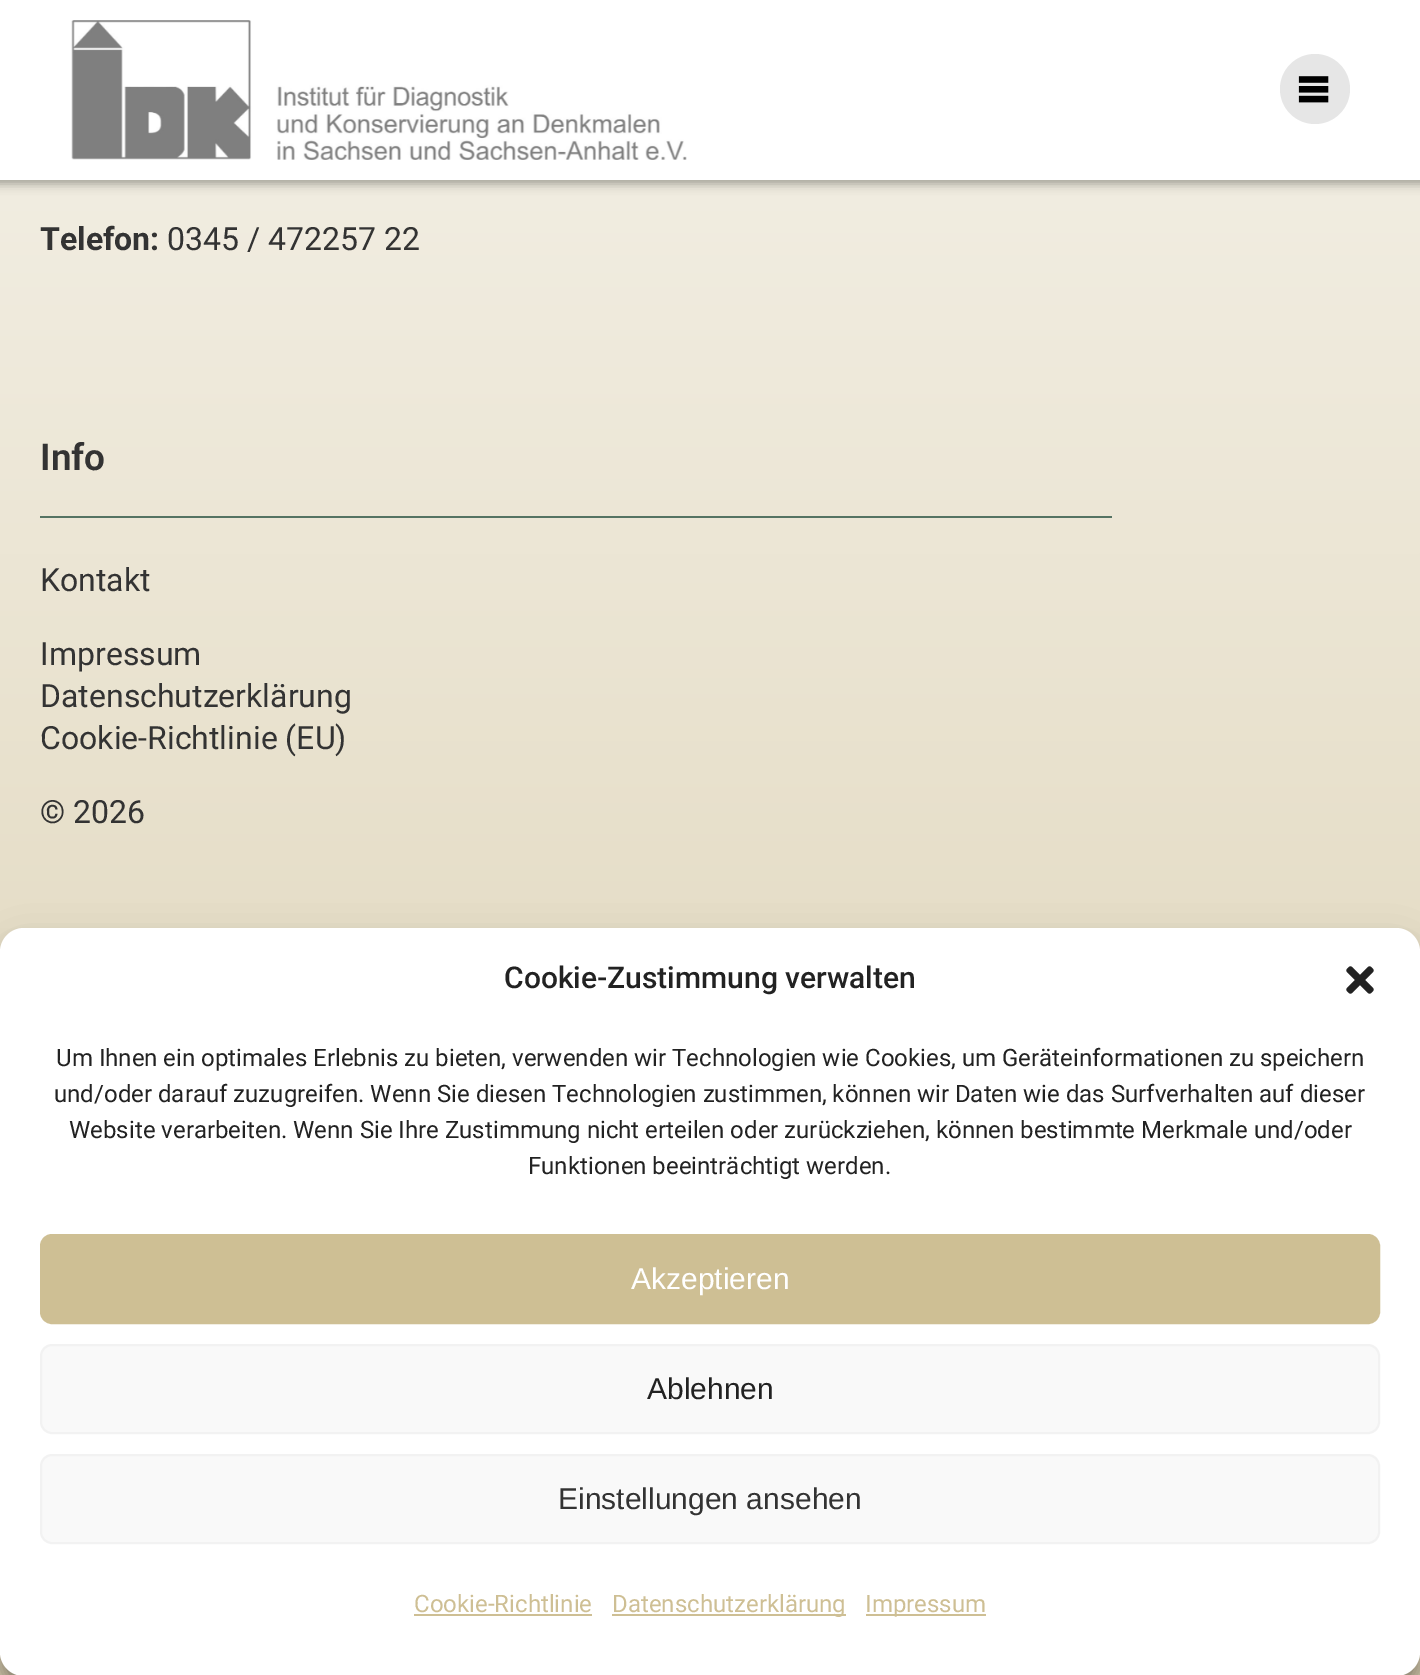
%!PS
<< /PageSize [1420 1675] /PageUsesTransparency true >> setpagedevice
/m/moveto load def
/l/rlineto load def
/z/closepath load def
/f/fill load def
/s/stroke load def
/q/gsave load def
/Q_/grestore load def
/w/setlinewidth load def
/C { dup -16 bitshift 255 div exch dup -8 bitshift 255 and 255 div exch 255 and 255 div setrgbcolor } def
/F { [ exch dup neg 0 0 3 -1 roll 0 0 ] selectfont } def
/T { moveto show } def
/R { rectfill } def
/A { dup .setfillconstantalpha .setstrokeconstantalpha } def
/O { newpath 0 360 arc closepath } def
/Q { 5 dict begin { /r /h /w /y /x } { exch def } forall
  x r add y moveto x w add y 2 copy h add r arct x w add y h add x 1 index r arct
  x y h add x y r arct x y 2 copy exch w add exch r arct closepath end } def
/S { 12 dict begin { /a /b /q /h /w /y /x } { exch def } forall gsave /was 0 def
  9 -2 -9 { dup b mul 4 div /e exch def 1 sub .425 mul 2.718 exch exp 1 add a .99 .min exch div /now exch def
    1 1 now sub 1 was sub div sub A /was now def
    w h .min e 2 mul add 0 gt { x e sub y e sub w e 2 mul add h e 2 mul add
      q e add b .6 mul add w h .min 2 div e add .min 0 .max Q fill } if } for grestore end } def
/I { 5 dict begin { /h /w /y /x /name } { exch def } forall
  gsave x y translate w h scale
  w h 8 [w 0 0 h 0 0] name (r) file false 3 colorimage grestore end } def
0 .pushpdf14devicefilter
0 1675 translate 1 -1 scale
4 setmiterlimit
16#FFFFFF C
0 0 1420 1675 R
q 0 180 m 1420 0 l 0 1495 l -1420 0 l z clip newpath
<< /ShadingType 2 /ColorSpace /DeviceRGB /Coords [710 -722 710 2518] /Extend [true true] /Function << /FunctionType 2 /Domain [0 1] /C0 [1 1 1] /C1 [.808 .749 .58] /N 1 >> >> shfill Q_
16#000000 C
-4 -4 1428 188 0 5 .33 S
16#FFFFFF C
0 0 1420 180 R
(1.rgb) 71 20 616 140 I
16#E6E6E6 C
1315 89 35 O f
(2.rgb) 1298 76 31 27 I
/Roboto-Bold 32 F
16#333333 C
(Telefon:) 40 250 T
/Roboto-Regular 32 F
(0345 / 472257 22) 167 250 T
/Roboto-SemiBold 37 F
(Info) 40 470 T
16#557363 C
40 516 1072 2 R
/Roboto-Regular 32 F
16#333333 C
(Kontakt) 40 591 T
(Impressum) 40 665 T
(Datenschutzerklärung) 40 707 T
(Cookie-Richtlinie \(EU\)) 40 749 T
(© 2026) 40 823 T
16#000000 C
0 940 1420 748 24 6 .23 S
0 948 1420 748 24 20 .19 S
16#FFFFFF C
0 928 1420 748 24 Q f
/Roboto-Medium 30 F
16#222222 C
(Cookie-Zustimmung verwalten) 504 988 T
(3.rgb) 1346 966 28 28 I
/Roboto-Regular 24 F
(Um Ihnen ein optimales Erlebnis zu bieten, verwenden wir Technologien wie Cookies, um Geräteinformationen zu speichern) 56 1066 T
(und/oder darauf zuzugreifen. Wenn Sie diesen Technologien zustimmen, können wir Daten wie das Surfverhalten auf dieser) 54 1102 T
(Website verarbeiten. Wenn Sie Ihre Zustimmung nicht erteilen oder zurückziehen, können bestimmte Merkmale und/oder) 69 1138 T
(Funktionen beeinträchtigt werden.) 528 1174 T
16#CEBF94 C
41 1235 1338 88 11 Q q f Q_
2 w
s
/LiberationSans-Regular 30 F
16#FFFFFF C
(Akzeptieren) 631 1289 T
16#F9F9F9 C
41 1345 1338 88 11 Q q f Q_
16#F2F2F2 C
s
16#222222 C
(Ablehnen) 647 1399 T
16#F9F9F9 C
41 1455 1338 88 11 Q q f Q_
16#F2F2F2 C
s
16#333333 C
(Einstellungen ansehen) 558 1509 T
/Roboto-Regular 24 F
16#CEBF94 C
(Cookie-Richtlinie) 414 1612 T
414 1614 178 2 R
612 1614 234 2 R
(Datenschutzerklärung) 612 1612 T
866 1614 120 2 R
(Impressum) 865 1612 T
.poppdf14devicefilter showpage
